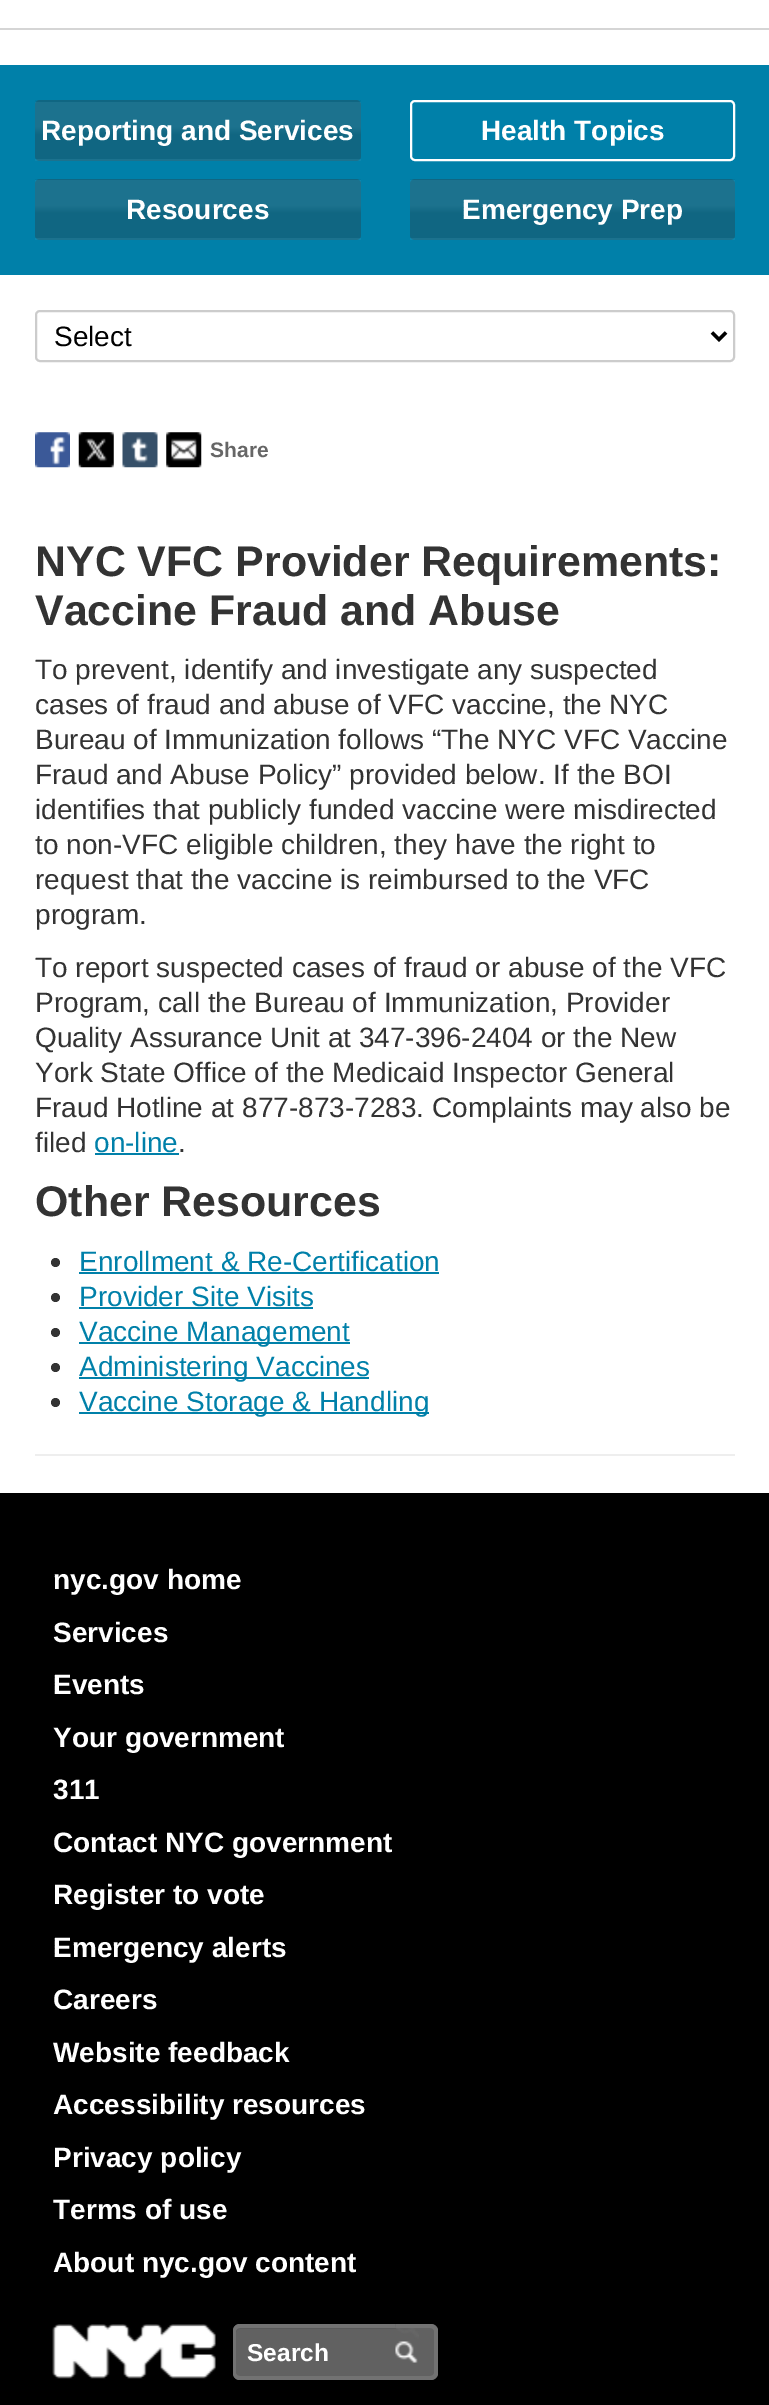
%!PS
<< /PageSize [769 2405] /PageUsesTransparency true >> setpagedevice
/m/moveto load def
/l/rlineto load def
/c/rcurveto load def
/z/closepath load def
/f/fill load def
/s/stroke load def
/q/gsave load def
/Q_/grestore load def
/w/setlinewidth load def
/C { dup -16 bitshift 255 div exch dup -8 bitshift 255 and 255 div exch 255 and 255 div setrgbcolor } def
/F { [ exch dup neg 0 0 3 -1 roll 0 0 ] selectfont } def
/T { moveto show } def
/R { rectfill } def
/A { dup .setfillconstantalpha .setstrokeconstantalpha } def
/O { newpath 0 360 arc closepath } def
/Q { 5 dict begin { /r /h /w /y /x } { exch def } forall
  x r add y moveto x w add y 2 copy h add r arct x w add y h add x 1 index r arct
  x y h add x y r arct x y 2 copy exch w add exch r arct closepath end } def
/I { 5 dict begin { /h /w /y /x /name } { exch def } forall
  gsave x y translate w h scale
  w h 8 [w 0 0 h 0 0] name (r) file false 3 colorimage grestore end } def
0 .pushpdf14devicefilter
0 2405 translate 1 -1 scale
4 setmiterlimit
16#FFFFFF C
0 0 769 2405 R
16#D5D5D5 C
0 28 769 2 R
16#0080A9 C
0 65 769 210 R
16#116B88 C
35 100 326 61 5 Q f
0.05 A
q 35 100 m 326 0 l 0 2 l -326 0 l z clip newpath
<< /ShadingType 2 /ColorSpace /DeviceRGB /Coords [198 102 198 44] /Extend [true true] /Function << /FunctionType 3 /Domain [0 1] /Functions [<< /FunctionType 2 /Domain [0 1] /C0 [0 0 0] /C1 [0 0 0] /N 1 >> << /FunctionType 2 /Domain [0 1] /C0 [0 0 0] /C1 [1 1 1] /N 1 >> << /FunctionType 2 /Domain [0 1] /C0 [1 1 1] /C1 [1 1 1] /N 1 >>] /Bounds [.43 .56] /Encode [0 1 0 1 0 1] >> >> shfill Q_
q 35 102 m 326 0 l 0 57 l -326 0 l z clip newpath
<< /ShadingType 2 /ColorSpace /DeviceRGB /Coords [198 159 198 102] /Extend [true true] /Function << /FunctionType 3 /Domain [0 1] /Functions [<< /FunctionType 2 /Domain [0 1] /C0 [0 0 0] /C1 [0 0 0] /N 1 >> << /FunctionType 2 /Domain [0 1] /C0 [0 0 0] /C1 [1 1 1] /N 1 >> << /FunctionType 2 /Domain [0 1] /C0 [1 1 1] /C1 [1 1 1] /N 1 >>] /Bounds [.43 .56] /Encode [0 1 0 1 0 1] >> >> shfill Q_
q 35 159 m 326 0 l 0 2 l -326 0 l z clip newpath
<< /ShadingType 2 /ColorSpace /DeviceRGB /Coords [198 217 198 159] /Extend [true true] /Function << /FunctionType 3 /Domain [0 1] /Functions [<< /FunctionType 2 /Domain [0 1] /C0 [0 0 0] /C1 [0 0 0] /N 1 >> << /FunctionType 2 /Domain [0 1] /C0 [0 0 0] /C1 [1 1 1] /N 1 >> << /FunctionType 2 /Domain [0 1] /C0 [1 1 1] /C1 [1 1 1] /N 1 >>] /Bounds [.43 .56] /Encode [0 1 0 1 0 1] >> >> shfill Q_
/LiberationSans-Bold 28 F
1 A
16#FFFFFF C
(Reporting and Services) 41 140 T
2 w
411 101 323 59 4 Q s
(Health Topics) 481 140 T
16#116B88 C
35 179 326 61 5 Q f
0.05 A
q 35 179 m 326 0 l 0 1 l -326 0 l z clip newpath
<< /ShadingType 2 /ColorSpace /DeviceRGB /Coords [198 180 198 123] /Extend [true true] /Function << /FunctionType 3 /Domain [0 1] /Functions [<< /FunctionType 2 /Domain [0 1] /C0 [0 0 0] /C1 [0 0 0] /N 1 >> << /FunctionType 2 /Domain [0 1] /C0 [0 0 0] /C1 [1 1 1] /N 1 >> << /FunctionType 2 /Domain [0 1] /C0 [1 1 1] /C1 [1 1 1] /N 1 >>] /Bounds [.43 .56] /Encode [0 1 0 1 0 1] >> >> shfill Q_
q 35 180 m 326 0 l 0 58 l -326 0 l z clip newpath
<< /ShadingType 2 /ColorSpace /DeviceRGB /Coords [198 238 198 180] /Extend [true true] /Function << /FunctionType 3 /Domain [0 1] /Functions [<< /FunctionType 2 /Domain [0 1] /C0 [0 0 0] /C1 [0 0 0] /N 1 >> << /FunctionType 2 /Domain [0 1] /C0 [0 0 0] /C1 [1 1 1] /N 1 >> << /FunctionType 2 /Domain [0 1] /C0 [1 1 1] /C1 [1 1 1] /N 1 >>] /Bounds [.43 .56] /Encode [0 1 0 1 0 1] >> >> shfill Q_
q 35 238 m 326 0 l 0 2 l -326 0 l z clip newpath
<< /ShadingType 2 /ColorSpace /DeviceRGB /Coords [198 296 198 238] /Extend [true true] /Function << /FunctionType 3 /Domain [0 1] /Functions [<< /FunctionType 2 /Domain [0 1] /C0 [0 0 0] /C1 [0 0 0] /N 1 >> << /FunctionType 2 /Domain [0 1] /C0 [0 0 0] /C1 [1 1 1] /N 1 >> << /FunctionType 2 /Domain [0 1] /C0 [1 1 1] /C1 [1 1 1] /N 1 >>] /Bounds [.43 .56] /Encode [0 1 0 1 0 1] >> >> shfill Q_
1 A
16#FFFFFF C
(Resources) 126 219 T
16#116B88 C
410 179 325 61 5 Q f
0.05 A
q 410 179 m 325 0 l 0 1 l -325 0 l z clip newpath
<< /ShadingType 2 /ColorSpace /DeviceRGB /Coords [572 180 572 123] /Extend [true true] /Function << /FunctionType 3 /Domain [0 1] /Functions [<< /FunctionType 2 /Domain [0 1] /C0 [0 0 0] /C1 [0 0 0] /N 1 >> << /FunctionType 2 /Domain [0 1] /C0 [0 0 0] /C1 [1 1 1] /N 1 >> << /FunctionType 2 /Domain [0 1] /C0 [1 1 1] /C1 [1 1 1] /N 1 >>] /Bounds [.43 .56] /Encode [0 1 0 1 0 1] >> >> shfill Q_
q 410 180 m 325 0 l 0 58 l -325 0 l z clip newpath
<< /ShadingType 2 /ColorSpace /DeviceRGB /Coords [572 238 572 180] /Extend [true true] /Function << /FunctionType 3 /Domain [0 1] /Functions [<< /FunctionType 2 /Domain [0 1] /C0 [0 0 0] /C1 [0 0 0] /N 1 >> << /FunctionType 2 /Domain [0 1] /C0 [0 0 0] /C1 [1 1 1] /N 1 >> << /FunctionType 2 /Domain [0 1] /C0 [1 1 1] /C1 [1 1 1] /N 1 >>] /Bounds [.43 .56] /Encode [0 1 0 1 0 1] >> >> shfill Q_
q 410 238 m 325 0 l 0 2 l -325 0 l z clip newpath
<< /ShadingType 2 /ColorSpace /DeviceRGB /Coords [572 296 572 238] /Extend [true true] /Function << /FunctionType 3 /Domain [0 1] /Functions [<< /FunctionType 2 /Domain [0 1] /C0 [0 0 0] /C1 [0 0 0] /N 1 >> << /FunctionType 2 /Domain [0 1] /C0 [0 0 0] /C1 [1 1 1] /N 1 >> << /FunctionType 2 /Domain [0 1] /C0 [1 1 1] /C1 [1 1 1] /N 1 >>] /Bounds [.43 .56] /Encode [0 1 0 1 0 1] >> >> shfill Q_
1 A
16#FFFFFF C
(Emergency Prep) 462 219 T
16#CCCCCC C
36 311 698 50 4 Q s
16#000000 C
3.5 w
712 332.5 m 7 7 l 7 -7 l s
/LiberationSans-Regular 28 F
(Select) 54 346 T
(1.rgb) 35 432 35 36 I
(2.rgb) 78 432 36 36 I
(3.rgb) 122 432 36 36 I
(4.rgb) 166 432 36 36 I
/LiberationSans-Bold 21 F
16#666666 C
(Share) 210 457 T
/LiberationSans-Bold 42.9 F
16#333333 C
(NYC VFC Provider Requirements:) 35 576 T
(Vaccine Fraud and Abuse) 35 625 T
/LiberationSans-Regular 28 F
(To prevent, identify and investigate any suspected) 35 679 T
(cases of fraud and abuse of VFC vaccine, the NYC) 35 714 T
(Bureau of Immunization follows “The NYC VFC Vaccine) 35 749 T
(Fraud and Abuse Policy” provided below. If the BOI) 35 784 T
(identifies that publicly funded vaccine were misdirected) 35 819 T
(to non-VFC eligible children, they have the right to) 35 854 T
(request that the vaccine is reimbursed to the VFC) 35 889 T
(program.) 35 924 T
(To report suspected cases of fraud or abuse of the VFC) 35 977 T
(Program, call the Bureau of Immunization, Provider) 35 1012 T
(Quality Assurance Unit at 347-396-2404 or the New) 35 1047 T
(York State Office of the Medicaid Inspector General) 35 1082 T
(Fraud Hotline at 877-873-7283. Complaints may also be) 35 1117 T
(filed) 35 1152 T
16#0080A9 C
(on-line) 94 1152 T
95 1153 84 2 R
16#333333 C
(.) 178 1152 T
/LiberationSans-Bold 42.9 F
(Other Resources) 35 1216 T
55.5 1262.5 4.5 O f
/LiberationSans-Regular 28 F
16#0080A9 C
(Enrollment & Re-Certification) 79 1271 T
79 1272 360 2 R
16#333333 C
55.5 1297.5 4.5 O f
16#0080A9 C
(Provider Site Visits) 79 1306 T
79 1307 234 2 R
16#333333 C
55.5 1332.5 4.5 O f
16#0080A9 C
79 1342 271 2 R
(Vaccine Management) 79 1341 T
16#333333 C
55.5 1367.5 4.5 O f
16#0080A9 C
79 1377 290 2 R
(Administering Vaccines) 79 1376 T
16#333333 C
55.5 1402.5 4.5 O f
16#0080A9 C
79 1412 350 2 R
(Vaccine Storage & Handling) 79 1411 T
16#EEEEEE C
35 1454 700 2 R
16#000000 C
0 1493 769 912 R
/LiberationSans-Bold 28 F
16#FFFFFF C
(nyc.gov home) 53 1589 T
(Services) 53 1642 T
(Events) 53 1694 T
(Your government) 53 1747 T
(311) 53 1799 T
(Contact NYC government) 53 1852 T
(Register to vote) 53 1904 T
(Emergency alerts) 53 1957 T
(Careers) 53 2009 T
(Website feedback) 53 2062 T
(Accessibility resources) 53 2114 T
(Privacy policy) 53 2167 T
(Terms of use) 53 2219 T
(About nyc.gov content) 53 2272 T
(5.rgb) 52 2324 164 55 I
16#616161 C
240 2324 m 156 0 l 0 56 l -156 0 l -4 0 -7 -3 -7 -7 c 0 -42 l 0 -4 3 -7 7 -7 c z f
16#5A5A5A C
240 2329 m 156 0 l 0 -1 l -156 0 l -3 0 -4 2 -4 5 c 0 -2 2 -4 4 -4 c z f
16#727272 C
240 2324 m 156 0 l 0 56 l -156 0 l -4 0 -7 -3 -7 -7 c 0 -42 l 0 -4 3 -7 7 -7 c z 240 2328 m 156 0 l 0 48 l -156 0 l -2 0 -4 -1 -4 -3 c 0 -42 l 0 -2 2 -3 4 -3 c z eofill
/LiberationSans-Bold 24.5 F
16#FFFFFF C
(Search) 247 2361 T
16#616161 C
396 2324 m 35 0 l 4 0 7 3 7 7 c 0 42 l 0 4 -3 7 -7 7 c -35 0 l z f
(6.rgb) 395 2324 24 39 I
16#727272 C
396 2324 m 34 0 l 4 0 8 3 8 7 c 0 42 l 0 4 -4 7 -8 7 c -34 0 l z 396 2328 m 34 0 l 2 0 4 1 4 3 c 0 42 l 0 2 -2 3 -4 3 c -34 0 l z eofill
.poppdf14devicefilter showpage
